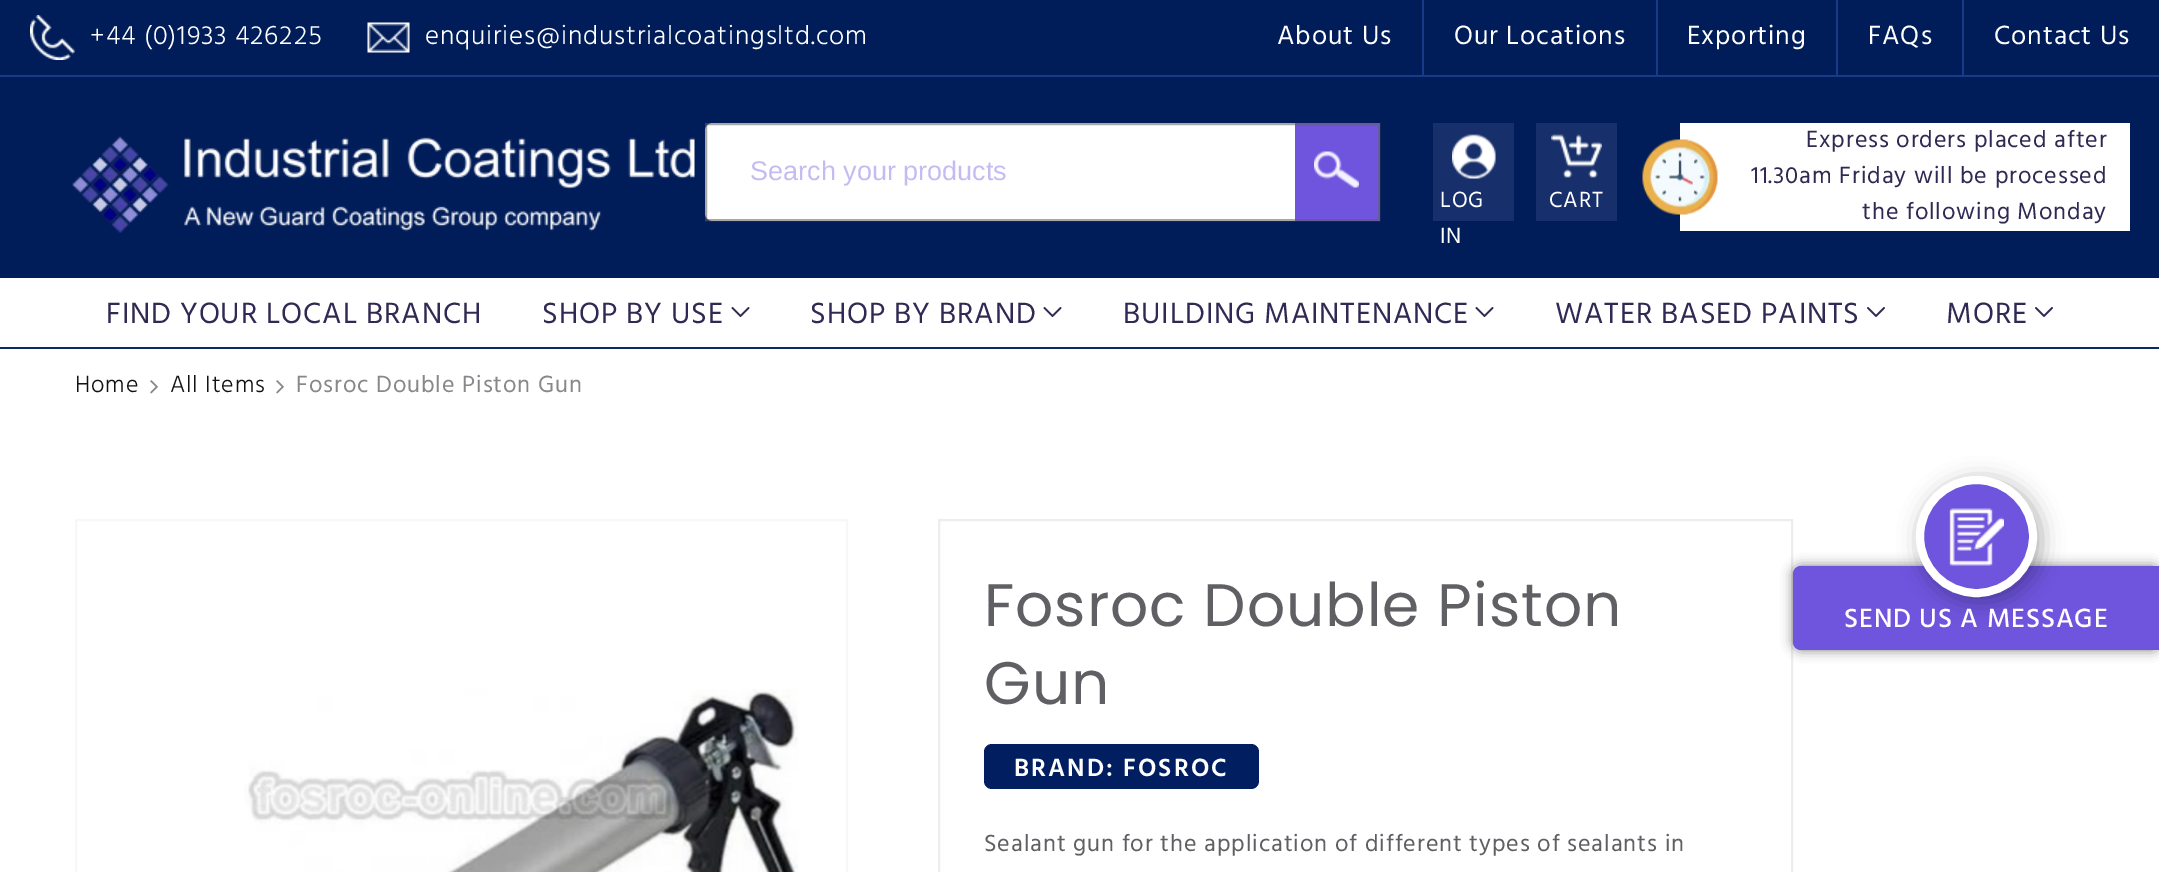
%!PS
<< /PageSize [2159 872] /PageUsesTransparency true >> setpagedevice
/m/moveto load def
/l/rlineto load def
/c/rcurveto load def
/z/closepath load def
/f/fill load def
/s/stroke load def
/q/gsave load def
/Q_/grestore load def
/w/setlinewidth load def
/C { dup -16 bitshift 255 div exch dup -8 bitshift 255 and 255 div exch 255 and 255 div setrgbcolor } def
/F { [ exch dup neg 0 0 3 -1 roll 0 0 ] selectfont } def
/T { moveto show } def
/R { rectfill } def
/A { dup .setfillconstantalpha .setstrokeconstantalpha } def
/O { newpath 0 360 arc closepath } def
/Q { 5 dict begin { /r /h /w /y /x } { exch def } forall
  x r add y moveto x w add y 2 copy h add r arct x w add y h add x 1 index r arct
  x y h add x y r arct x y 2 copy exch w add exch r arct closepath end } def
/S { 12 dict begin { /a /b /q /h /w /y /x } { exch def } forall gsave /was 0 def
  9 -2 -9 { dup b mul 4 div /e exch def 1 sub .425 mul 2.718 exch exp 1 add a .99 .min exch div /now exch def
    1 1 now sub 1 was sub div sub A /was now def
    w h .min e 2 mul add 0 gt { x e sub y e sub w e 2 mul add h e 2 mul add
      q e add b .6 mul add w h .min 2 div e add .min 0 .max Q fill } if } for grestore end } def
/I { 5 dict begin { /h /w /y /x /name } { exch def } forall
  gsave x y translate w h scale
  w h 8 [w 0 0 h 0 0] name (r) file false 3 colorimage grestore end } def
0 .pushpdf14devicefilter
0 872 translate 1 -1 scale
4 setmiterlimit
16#FFFFFF C
0 0 2159 872 R
16#011D59 C
0 0 2159 278 R
16#173A89 C
0 75 2159 2 R
(1.rgb) 30 15 45 45 I
/Hind-Light 27 F
16#FFFFFF C
90 44 m .9 0 (+44 \(0\)1933 426225) ashow
(2.rgb) 367 22 43 31 I
425 44 m .9 0 (enquiries@industrialcoatingsltd.com) ashow
/Hind-Regular 27 F
1277 44 m .9 0 (About Us) ashow
16#173A89 C
1422 0 2 75 R
16#FFFFFF C
1454 44 m .9 0 (Our Locations) ashow
16#173A89 C
1656 0 2 75 R
16#FFFFFF C
1687 44 m .9 0 (Exporting) ashow
16#173A89 C
1836 0 2 75 R
16#FFFFFF C
1868 44 m .9 0 (FAQs) ashow
16#173A89 C
1962 0 2 75 R
16#FFFFFF C
1994 44 m .9 0 (Contact Us) ashow
(3.rgb) 72 136 623 97 I
713 123 m 582 0 l 0 98 l -582 0 l -4.5 0 -8 -3.5 -8 -8 c 0 -82 l 0 -4.5 3.5 -8 8 -8 c z f
16#6F55DE C
1295 123 85 98 R
(4.rgb) 1314 151 45 37 I
0.55 A
16#605F64 C
2 w
706 124 673 96 rectstroke
/LiberationSans-Regular 27 F
1 A
16#C5BBF2 C
(Search your products) 750 180 T
16#FFFFFF C
1680 123 450 108 R
(5.rgb) 1642 139 76 76 I
/Hind-Regular 24 F
16#312953 C
1806 147 m .9 0 (Express orders placed after) ashow
1751 183 m .9 0 (11.30am Friday will be processed) ashow
1862 219 m .9 0 (the following Monday) ashow
16#172F6B C
1433 123 81 98 R
(6.rgb) 1452 134 44 45 I
/Hind-Regular 22.5 F
16#FFFFFF C
1440 207 m .9 0 (LOG) ashow
1440 243 m .9 0 (IN) ashow
16#172F6B C
1536 123 81 98 R
(7.rgb) 1551 134 51 44 I
16#FFFFFF C
1549 207 m .9 0 (CART) ashow
16#0D2963 C
0 347 2159 2 R
/Hind-Regular 30 F
16#312953 C
106 323 m .9 0 (FIND YOUR LOCAL BRANCH) ashow
542 323 m .9 0 (SHOP BY USE) ashow
(8.rgb) 731 307 19 10 I
810 323 m .9 0 (SHOP BY BRAND) ashow
(8.rgb) 1043 307 19 10 I
1123 323 m .9 0 (BUILDING MAINTENANCE) ashow
(8.rgb) 1475 307 19 10 I
1555 323 m .9 0 (WATER BASED PAINTS) ashow
(9.rgb) 1867 307 18 10 I
1946 323 m .9 0 (MORE) ashow
(9.rgb) 2035 307 18 10 I
/Hind-Light 24 F
16#121212 C
75 392 m .9 0 (Home) ashow
(10.rgb) 150 380 8 14 I
170 392 m .9 0 (All Items) ashow
(10.rgb) 276 380 8 14 I
/Hind-Regular 24 F
16#88878B C
296 392 m .9 0 (Fosroc Double Piston Gun) ashow
16#F7F7F7 C
76 520 771 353 rectstroke
(11.rgb) 244 689 554 183 I
16#EDEDED C
939 520 853 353 rectstroke
/Poppins-Regular 60 F
16#605F64 C
984 626 m .9 0 (Fosroc Double Piston) ashow
984 704 m .9 0 (Gun) ashow
16#011E60 C
984 744 275 45 8 Q f
/Hind-SemiBold 25.5 F
16#FFFFFF C
1014 776 m 2 0 (BRAND: FOSROC) ashow
/Hind-Regular 24 F
16#605F64 C
984 851 m .9 0 (Sealant gun for the application of different types of sealants in) ashow
16#000000 C
1793 566 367 84 8 6 .5 S
16#6F55DE C
1801 566 m 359 0 l 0 84 l -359 0 l -4.5 0 -8 -3.5 -8 -8 c 0 -68 l 0 -4.5 3.5 -8 8 -8 c z f
16#000000 C
1920 480 122 122 61 11 .3 S
16#6F55DE C
1976.5 536.5 56.5 O q f Q_
16#FFFFFF C
8 w
s
(12.rgb) 1949 508 55 58 I
/Hind-Medium 27 F
1844 627 m .9 0 (SEND US A MESSAGE) ashow
.poppdf14devicefilter showpage
